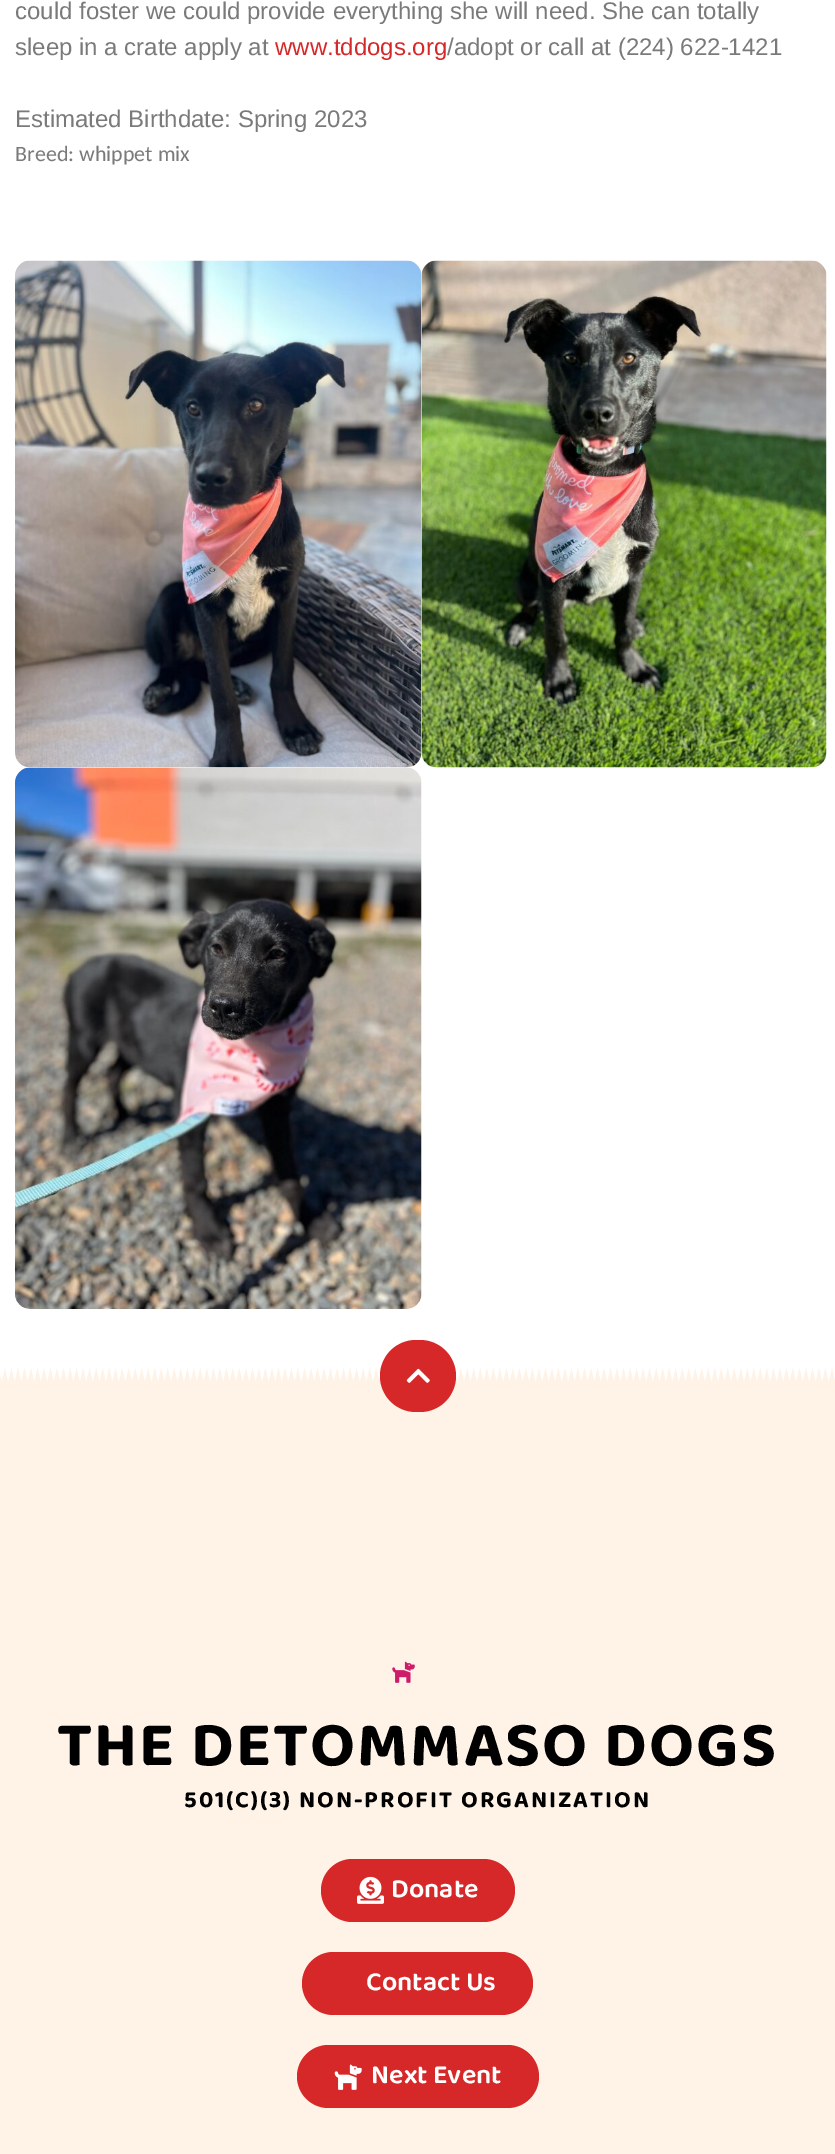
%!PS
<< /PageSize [835 2154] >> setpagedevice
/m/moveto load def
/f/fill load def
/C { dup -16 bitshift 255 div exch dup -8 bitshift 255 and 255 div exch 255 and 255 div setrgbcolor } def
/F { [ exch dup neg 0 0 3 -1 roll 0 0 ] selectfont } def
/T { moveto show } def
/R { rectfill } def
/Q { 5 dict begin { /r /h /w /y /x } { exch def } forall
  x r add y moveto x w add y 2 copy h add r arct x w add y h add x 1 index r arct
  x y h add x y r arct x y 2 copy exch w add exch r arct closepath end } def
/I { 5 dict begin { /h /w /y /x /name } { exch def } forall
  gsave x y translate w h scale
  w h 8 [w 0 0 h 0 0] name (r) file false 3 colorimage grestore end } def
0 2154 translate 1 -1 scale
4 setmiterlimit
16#FFFFFF C
0 0 835 2154 R
/Arimo-Regular 24 F
16#7A7A7A C
(could foster we could provide everything she will need. She can totally) 15 19 T
(sleep in a crate apply at) 15 55 T
16#D62828 C
(www.tddogs.org) 275 55 T
16#7A7A7A C
(/adopt or call at \(224\) 622-1421) 447 55 T
(Estimated Birthdate: Spring 2023) 15 127 T
/Carlito-Regular 22 F
(Breed: whippet mix) 15 161 T
(1.rgb) 15 260 407 508 I
(2.rgb) 421 260 406 508 I
(3.rgb) 15 767 407 542 I
16#FFF3E7 C
0 1368 835 786 R
(5.rgb) 0 1368 835 13 I
16#D62828 C
380 1340 76 72 36 Q f
(4.rgb) 406 1368 24 15 I
(6.rgb) 392 1661 23 22 I
/BalooThambi2-Bold 64.5 F
16#000000 C
57 1765 m 1.95 0 (THE DETOMMASO DOGS) ashow
/BalooThambi2-Bold 24 F
184 1807 m 1.95 0 (501\(C\)\(3\) NON-PROFIT ORGANIZATION) ashow
16#D62828 C
321 1859 194 63 31.5 Q f
(7.rgb) 357 1876 27 28 I
/BalooThambi2-SemiBold 27 F
16#FFFFFF C
(Donate) 391 1897 T
16#D62828 C
302 1952 231 63 31.5 Q f
16#FFFFFF C
(Contact Us) 366 1990 T
16#D62828 C
297 2045 242 63 31.5 Q f
(8.rgb) 334 2064 28 26 I
16#FFFFFF C
(Next Event) 371 2083 T
showpage
